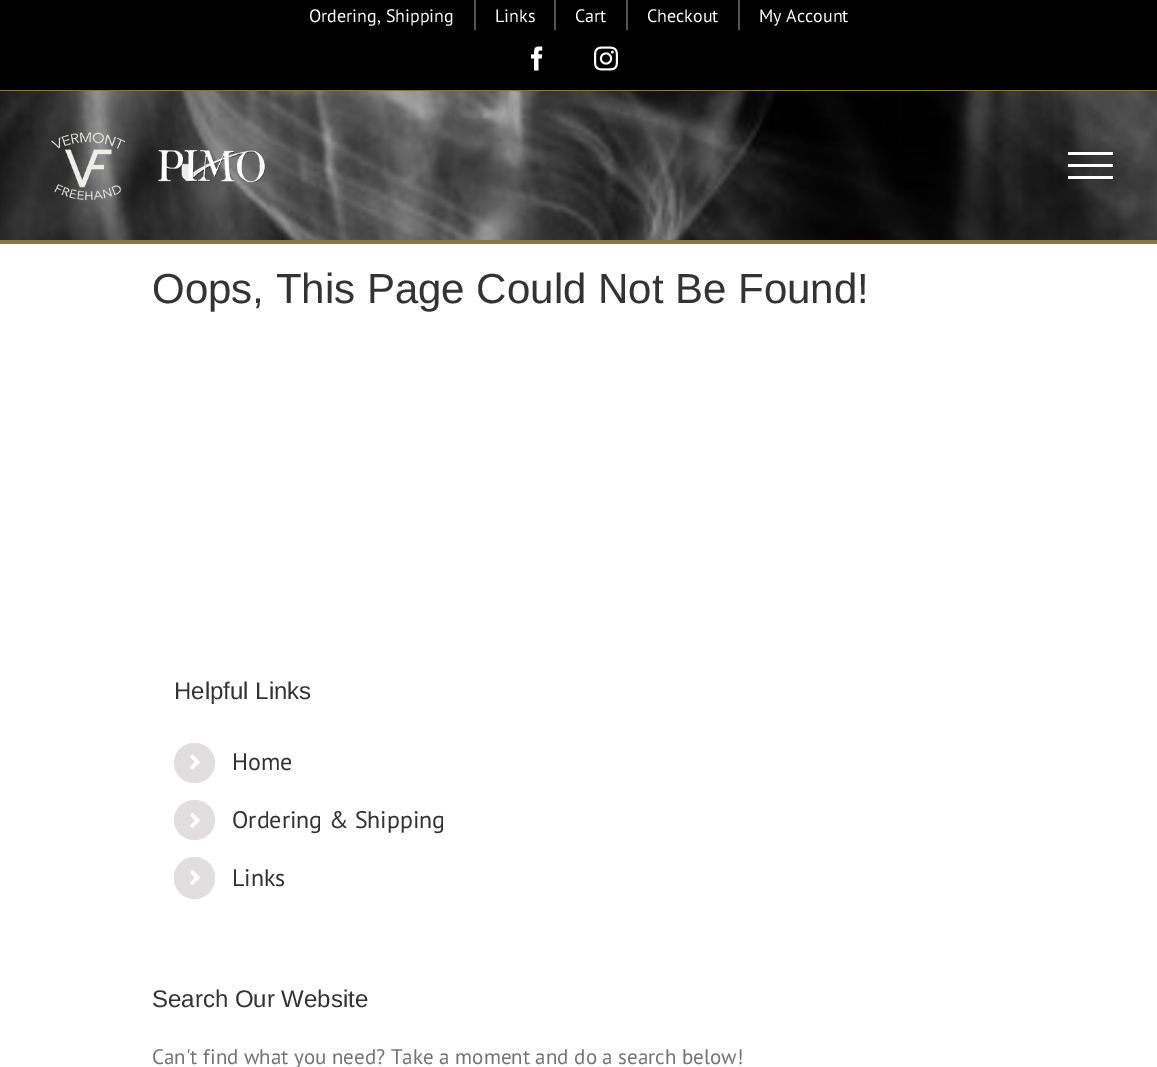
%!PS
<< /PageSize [1157 1067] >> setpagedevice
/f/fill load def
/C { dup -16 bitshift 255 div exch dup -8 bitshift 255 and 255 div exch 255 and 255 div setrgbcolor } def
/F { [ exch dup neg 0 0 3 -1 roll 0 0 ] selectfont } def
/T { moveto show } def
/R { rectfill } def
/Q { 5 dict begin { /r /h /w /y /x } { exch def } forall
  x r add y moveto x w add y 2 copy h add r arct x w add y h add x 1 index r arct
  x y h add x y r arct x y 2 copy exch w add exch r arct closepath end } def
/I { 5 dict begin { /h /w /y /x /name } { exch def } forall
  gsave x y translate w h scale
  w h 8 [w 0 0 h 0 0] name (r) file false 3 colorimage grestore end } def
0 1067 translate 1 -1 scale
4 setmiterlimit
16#FFFFFF C
0 0 1157 1067 R
16#000000 C
0 0 1157 90 R
16#8A7645 C
0 90 1157 1 R
/PTSans-Regular 18 F
16#FFFFFF C
(Ordering, Shipping) 309 22 T
16#545454 C
474 0 2 30 R
16#FFFFFF C
(Links) 495 22 T
16#545454 C
554 0 2 30 R
16#FFFFFF C
(Cart) 575 22 T
16#545454 C
626 0 2 30 R
16#FFFFFF C
(Checkout) 647 22 T
16#545454 C
738 0 2 30 R
16#FFFFFF C
(My Account) 759 22 T
(1.rgb) 531 46 12 25 I
(2.rgb) 594 46 24 25 I
(3.rgb) 0 91 1157 149 I
16#8A7645 C
0 240 1157 4 R
(4.rgb) 51 132 214 69 I
16#FFFFFF C
1068 152 45 3 R
1068 164 45 3 R
1068 176 45 3 R
/LiberationSans-Regular 42 F
16#333333 C
(Oops, This Page Could Not Be Found!) 152 303 T
/LiberationSans-Regular 24 F
(Helpful Links) 174 699 T
16#E0DEDE C
174 743 41 40 20 Q f
(5.rgb) 190 754 10 16 I
/PTSans-Regular 24 F
16#333333 C
(Home) 232 770 T
16#E0DEDE C
174 800 41 40 20 Q f
(6.rgb) 190 813 10 15 I
16#333333 C
(Ordering & Shipping) 232 828 T
16#E0DEDE C
174 857 41 42 20.5 Q f
(6.rgb) 190 870 10 15 I
16#333333 C
(Links) 232 886 T
/LiberationSans-Regular 24 F
(Search Our Website) 152 1007 T
/PTSans-Regular 21 F
16#747474 C
(Can't find what you need? Take a moment and do a search below!) 152 1064 T
showpage
